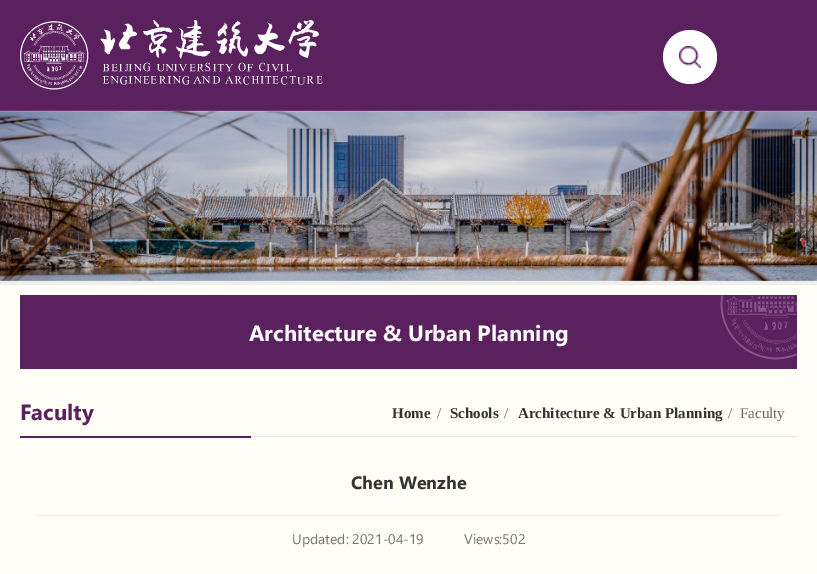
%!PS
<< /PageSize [817 574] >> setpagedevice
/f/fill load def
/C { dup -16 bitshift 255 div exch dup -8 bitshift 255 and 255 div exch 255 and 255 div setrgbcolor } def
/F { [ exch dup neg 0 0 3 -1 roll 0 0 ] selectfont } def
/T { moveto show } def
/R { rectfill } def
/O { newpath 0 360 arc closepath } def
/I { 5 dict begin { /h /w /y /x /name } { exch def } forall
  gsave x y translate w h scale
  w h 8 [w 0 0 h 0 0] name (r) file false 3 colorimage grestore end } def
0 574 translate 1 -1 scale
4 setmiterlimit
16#FFFFFF C
0 0 817 574 R
16#5B215E C
0 0 817 110 R
16#6B376E C
0 110 817 1 R
(1.rgb) 20 20 303 70 I
16#FFFFFF C
690 57 27 O f
(2.rgb) 679 46 22 22 I
(3.rgb) 0 111 817 170 I
16#FFFEF7 C
0 285 817 289 R
16#EEEEEE C
0 281 817 4 R
16#5B215E C
20 295 777 74 R
(4.rgb) 720 295 77 65 I
/SegoeUI-Bold 22 F
16#FFFFFF C
(Architecture & Urban Planning) 249 341 T
16#E6E6E6 C
251 436 546 1 R
16#5B215E C
(Faculty) 20 420 T
20 436 231 2 R
/LiberationSerif-Bold 15 F
16#333333 C
(Home) 392 418 T
/LiberationSerif-Regular 15 F
16#666666 C
(/) 437 418 T
/LiberationSerif-Bold 15 F
16#333333 C
(Schools) 450 418 T
/LiberationSerif-Regular 15 F
16#666666 C
(/) 504 418 T
/LiberationSerif-Bold 15 F
16#333333 C
(Architecture & Urban Planning) 518 418 T
/LiberationSerif-Regular 15 F
16#666666 C
(/) 728 418 T
(Faculty) 740 418 T
16#EEEEEE C
36 515 745 1 R
/SegoeUI-Bold 18 F
16#333333 C
(Chen Wenzhe) 351 489 T
/SegoeUI-Regular 14 F
16#757575 C
(Updated: 2021-04-19) 292 544 T
(Views:502) 464 544 T
showpage
